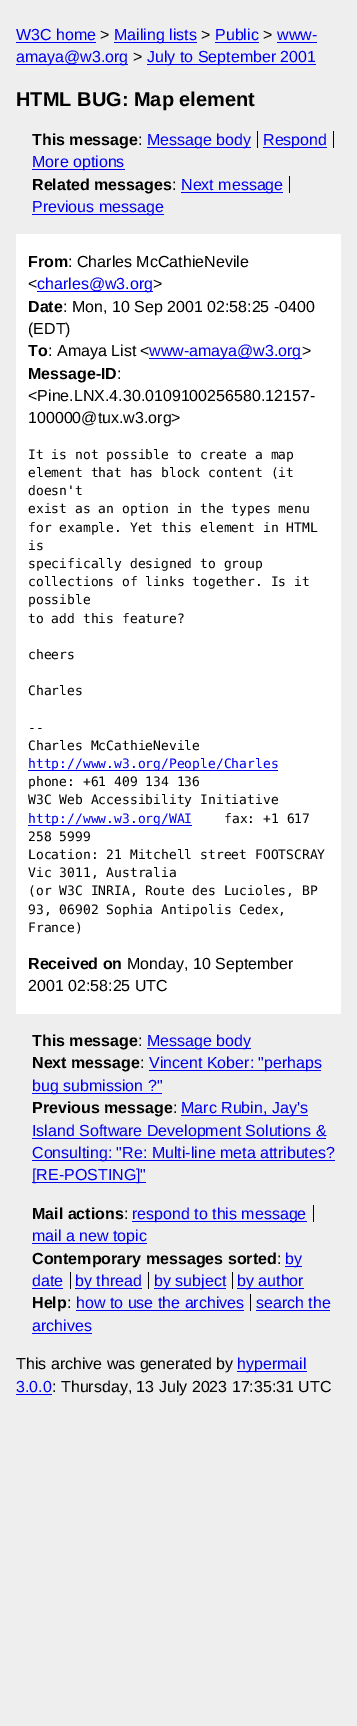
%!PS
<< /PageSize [357 1726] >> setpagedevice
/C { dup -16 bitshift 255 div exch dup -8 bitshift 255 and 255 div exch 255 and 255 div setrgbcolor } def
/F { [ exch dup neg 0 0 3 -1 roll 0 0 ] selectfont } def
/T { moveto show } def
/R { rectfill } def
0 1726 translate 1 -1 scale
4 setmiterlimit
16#EEEEEE C
0 0 357 1726 R
/LiberationSans-Regular 16 F
16#0000EE C
(W3C home) 16 40 T
16 42 80 1 R
16#000000 C
(>) 100 40 T
16#0000EE C
114 42 83 1 R
(Mailing lists) 114 40 T
16#000000 C
(>) 201 40 T
16#0000EE C
(Public) 215 40 T
215 42 44 1 R
16#000000 C
(>) 263 40 T
16#0000EE C
(www-) 277 40 T
277 42 40 1 R
16 64 112 1 R
(amaya@w3.org) 16 62 T
16#000000 C
(>) 133 62 T
16#0000EE C
147 64 169 1 R
(July to September 2001) 147 62 T
/LiberationSans-Bold 20 F
16#000000 C
(HTML BUG: Map element) 16 106 T
/LiberationSans-Bold 16 F
(This message) 32 145 T
/LiberationSans-Regular 16 F
(:) 138 145 T
16#0000EE C
147 147 104 1 R
(Message body) 147 145 T
263 147 64 1 R
(Respond) 263 145 T
16#000000 C
257 131 1 17 R
333 131 1 17 R
16#0000EE C
32 169 93 1 R
(More options) 32 167 T
/LiberationSans-Bold 16 F
16#000000 C
(Related messages) 32 190 T
/LiberationSans-Regular 16 F
(:) 172 190 T
16#0000EE C
181 192 102 1 R
(Next message) 181 190 T
16#000000 C
289 176 1 17 R
16#0000EE C
32 214 132 1 R
(Previous message) 32 212 T
16#FFFFFF C
16 234 325 780 R
/LiberationSans-Bold 16 F
16#000000 C
(From) 28 267 T
/LiberationSans-Regular 16 F
(: Charles McCathieNevile) 68 267 T
(<) 28 289 T
16#0000EE C
37 291 116 1 R
(charles@w3.org) 37 289 T
16#000000 C
(>) 153 289 T
/LiberationSans-Bold 16 F
(Date) 28 312 T
/LiberationSans-Regular 16 F
(: Mon, 10 Sep 2001 02:58:25 -0400) 63 312 T
(\(EDT\)) 28 334 T
/LiberationSans-Bold 16 F
(To) 28 356 T
/LiberationSans-Regular 16 F
(: Amaya List <) 48 356 T
16#0000EE C
149 358 153 1 R
(www-amaya@w3.org) 149 356 T
16#000000 C
(>) 302 356 T
/LiberationSans-Bold 16 F
(Message-ID) 28 379 T
/LiberationSans-Regular 16 F
(:) 117 379 T
(<Pine.LNX.4.30.0109100256580.12157-) 28 401 T
(100000@tux.w3.org>) 28 423 T
/DejaVuSansMono-Regular 13 F
(It is not possible to create a map) 28 459 T
(element that has block content \(it) 28 477 T
(doesn't) 28 495 T
(exist as an option in the types menu) 28 513 T
(for example. Yet this element in HTML) 28 532 T
(is) 28 550 T
(specifically designed to group) 28 568 T
(collections of links together. Is it) 28 586 T
(possible) 28 604 T
(to add this feature?) 28 623 T
(cheers) 28 659 T
(Charles) 28 695 T
(--) 28 732 T
(Charles McCathieNevile) 28 750 T
16#0000EE C
28 770 250 1 R
(http://www.w3.org/People/Charles) 28 768 T
16#000000 C
(phone: +61 409 134 136) 28 786 T
(W3C Web Accessibility Initiative) 28 804 T
16#0000EE C
28 825 164 1 R
(http://www.w3.org/WAI) 28 823 T
16#000000 C
(fax: +1 617) 224 823 T
(258 5999) 28 841 T
(Location: 21 Mitchell street FOOTSCRAY) 28 859 T
(Vic 3011, Australia) 28 877 T
(\(or W3C INRIA, Route des Lucioles, BP) 28 895 T
(93, 06902 Sophia Antipolis Cedex,) 28 914 T
(France\)) 28 932 T
/LiberationSans-Bold 16 F
(Received on) 28 969 T
/LiberationSans-Regular 16 F
(Monday, 10 September) 127 969 T
(2001 02:58:25 UTC) 28 991 T
/LiberationSans-Bold 16 F
(This message) 32 1046 T
/LiberationSans-Regular 16 F
(:) 138 1046 T
16#0000EE C
147 1048 104 1 R
(Message body) 147 1046 T
/LiberationSans-Bold 16 F
16#000000 C
(Next message) 32 1068 T
/LiberationSans-Regular 16 F
(:) 140 1068 T
16#0000EE C
149 1070 172 1 R
(Vincent Kober: "perhaps) 149 1068 T
32 1093 130 1 R
(bug submission ?") 32 1091 T
/LiberationSans-Bold 16 F
16#000000 C
(Previous message) 32 1113 T
/LiberationSans-Regular 16 F
(:) 173 1113 T
16#0000EE C
181 1115 127 1 R
(Marc Rubin, Jay's) 181 1113 T
32 1138 294 1 R
(Island Software Development Solutions &) 32 1136 T
32 1160 303 1 R
(Consulting: "Re: Multi-line meta attributes?) 32 1158 T
32 1182 114 1 R
([RE-POSTING]") 32 1180 T
/LiberationSans-Bold 16 F
16#000000 C
(Mail actions) 32 1219 T
/LiberationSans-Regular 16 F
(:) 124 1219 T
16#0000EE C
132 1221 175 1 R
(respond to this message) 132 1219 T
16#000000 C
313 1205 1 17 R
16#0000EE C
32 1243 115 1 R
(mail a new topic) 32 1241 T
/LiberationSans-Bold 16 F
16#000000 C
(Contemporary messages sorted) 32 1264 T
/LiberationSans-Regular 16 F
(:) 277 1264 T
16#0000EE C
285 1266 17 1 R
(by) 285 1264 T
(date) 32 1286 T
16#000000 C
70 1272 1 17 R
16#0000EE C
32 1288 31 1 R
75 1288 67 1 R
(by thread) 75 1286 T
154 1288 72 1 R
(by subject) 154 1286 T
16#000000 C
148 1272 1 17 R
16#0000EE C
237 1288 67 1 R
(by author) 237 1286 T
16#000000 C
232 1272 1 17 R
/LiberationSans-Bold 16 F
(Help) 32 1308 T
/LiberationSans-Regular 16 F
(:) 67 1308 T
16#0000EE C
(how to use the archives) 76 1308 T
76 1310 168 1 R
(search the) 256 1308 T
16#000000 C
250 1294 1 17 R
16#0000EE C
256 1310 74 1 R
(archives) 32 1331 T
32 1333 60 1 R
16#000000 C
(This archive was generated by) 16 1369 T
16#0000EE C
237 1371 70 1 R
(hypermail) 237 1369 T
(3.0.0) 16 1392 T
16 1394 36 1 R
16#000000 C
(: Thursday, 13 July 2023 17:35:31 UTC) 52 1392 T
showpage
